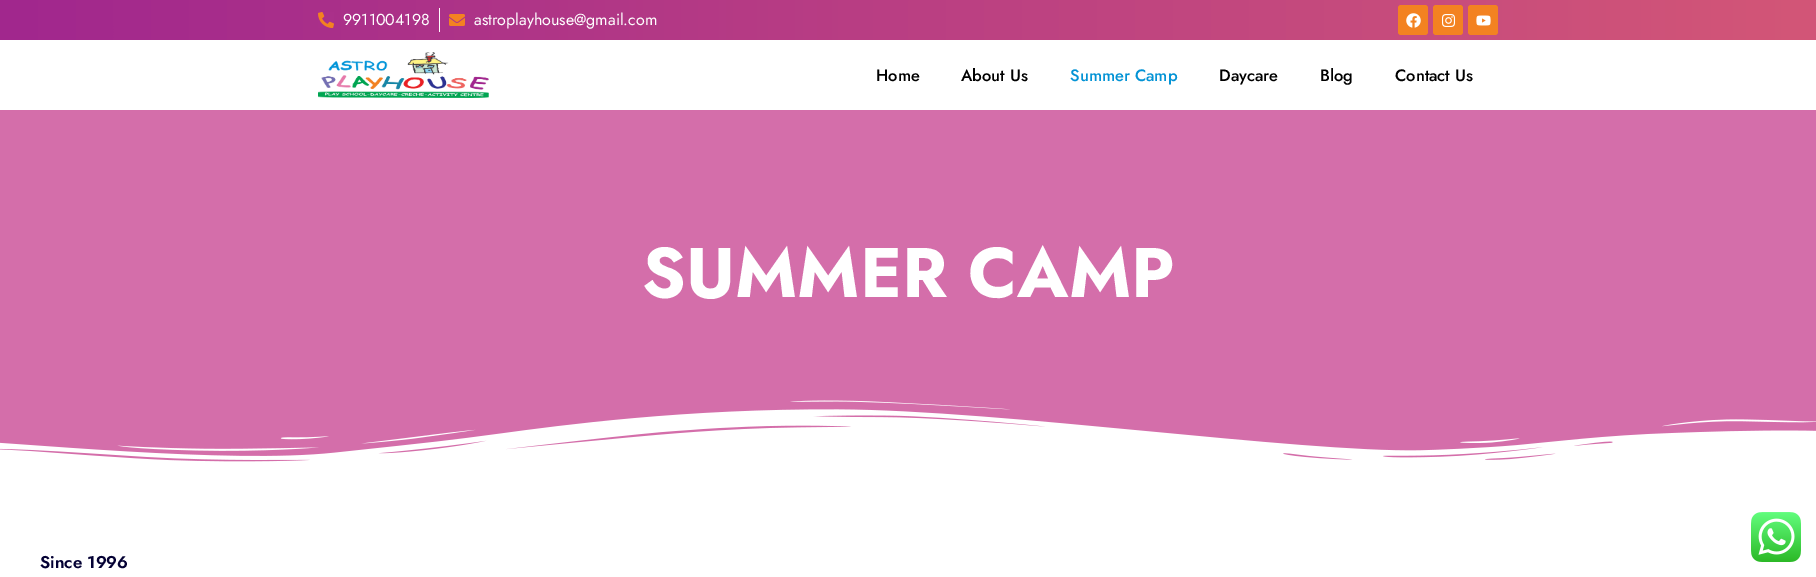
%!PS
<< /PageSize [1816 577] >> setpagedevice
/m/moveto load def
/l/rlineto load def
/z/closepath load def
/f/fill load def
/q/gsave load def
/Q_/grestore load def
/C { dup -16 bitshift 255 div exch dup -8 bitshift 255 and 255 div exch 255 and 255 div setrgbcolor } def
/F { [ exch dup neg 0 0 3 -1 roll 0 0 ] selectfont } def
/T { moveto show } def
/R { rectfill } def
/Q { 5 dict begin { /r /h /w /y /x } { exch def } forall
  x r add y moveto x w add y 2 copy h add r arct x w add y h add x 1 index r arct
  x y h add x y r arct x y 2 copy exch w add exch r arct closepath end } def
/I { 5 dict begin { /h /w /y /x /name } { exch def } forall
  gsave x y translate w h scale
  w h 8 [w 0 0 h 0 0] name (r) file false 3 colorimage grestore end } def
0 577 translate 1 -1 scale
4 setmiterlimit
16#FFFFFF C
0 0 1816 577 R
q 0 0 m 1816 0 l 0 40 l -1816 0 l z clip newpath
<< /ShadingType 2 /ColorSpace /DeviceRGB /Coords [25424 20 0 20] /Extend [true true] /Function << /FunctionType 3 /Domain [0 1] /Functions [<< /FunctionType 2 /Domain [0 1] /C0 [.008 .584 .851] /C1 [.467 .443 .702] /N 1 >> << /FunctionType 2 /Domain [0 1] /C0 [.467 .443 .702] /C1 [.906 .475 .667] /N 1 >> << /FunctionType 2 /Domain [0 1] /C0 [.906 .475 .667] /C1 [.004 .647 .322] /N 1 >> << /FunctionType 2 /Domain [0 1] /C0 [.004 .647 .322] /C1 [.953 .514 .133] /N 1 >> << /FunctionType 2 /Domain [0 1] /C0 [.953 .514 .133] /C1 [.094 .529 .655] /N 1 >> << /FunctionType 2 /Domain [0 1] /C0 [.094 .529 .655] /C1 [.914 .129 .149] /N 1 >> << /FunctionType 2 /Domain [0 1] /C0 [.914 .129 .149] /C1 [.173 .192 .573] /N 1 >> << /FunctionType 2 /Domain [0 1] /C0 [.173 .192 .573] /C1 [.933 .439 .42] /N 1 >> << /FunctionType 2 /Domain [0 1] /C0 [.933 .439 .42] /C1 [.631 .153 .557] /N 1 >>] /Bounds [.11 .22 .33 .44 .56 .67 .78 .89] /Encode [0 1 0 1 0 1 0 1 0 1 0 1 0 1 0 1 0 1] >> >> shfill Q_
(1.rgb) 318 12 16 16 I
/Jost-Regular 16 F
(9911004198) 343 25 T
16#FFFCFC C
439 8 1 24 R
(2.rgb) 449 14 16 12 I
16#FFFFFF C
(astroplayhouse@gmail.com) 474 25 T
16#F38221 C
1398 5 30 30 3 Q f
(3.rgb) 1406 13 15 15 I
1433 5 30 30 3 Q f
(4.rgb) 1442 14 14 13 I
1468 5 30 30 3 Q f
(5.rgb) 1476 15 15 11 I
(6.rgb) 318 52 171 46 I
/Jost-Medium 16.5 F
16#000000 C
(Home) 876 81 T
(About Us) 961 81 T
16#0393D5 C
(Summer Camp) 1070 81 T
16#000000 C
(Daycare) 1219 81 T
(Blog) 1320 81 T
(Contact Us) 1395 81 T
16#D46EAA C
0 110 1816 352 R
/Jost-Bold 70 F
16#FFFFFF C
(SUMMER CAMP) 642 297 T
(7.rgb) 0 400 1816 70 I
/Jost-SemiBold 17 F
16#040134 C
(Since 1996) 40 568 T
(8.rgb) 1751 512 50 50 I
showpage
